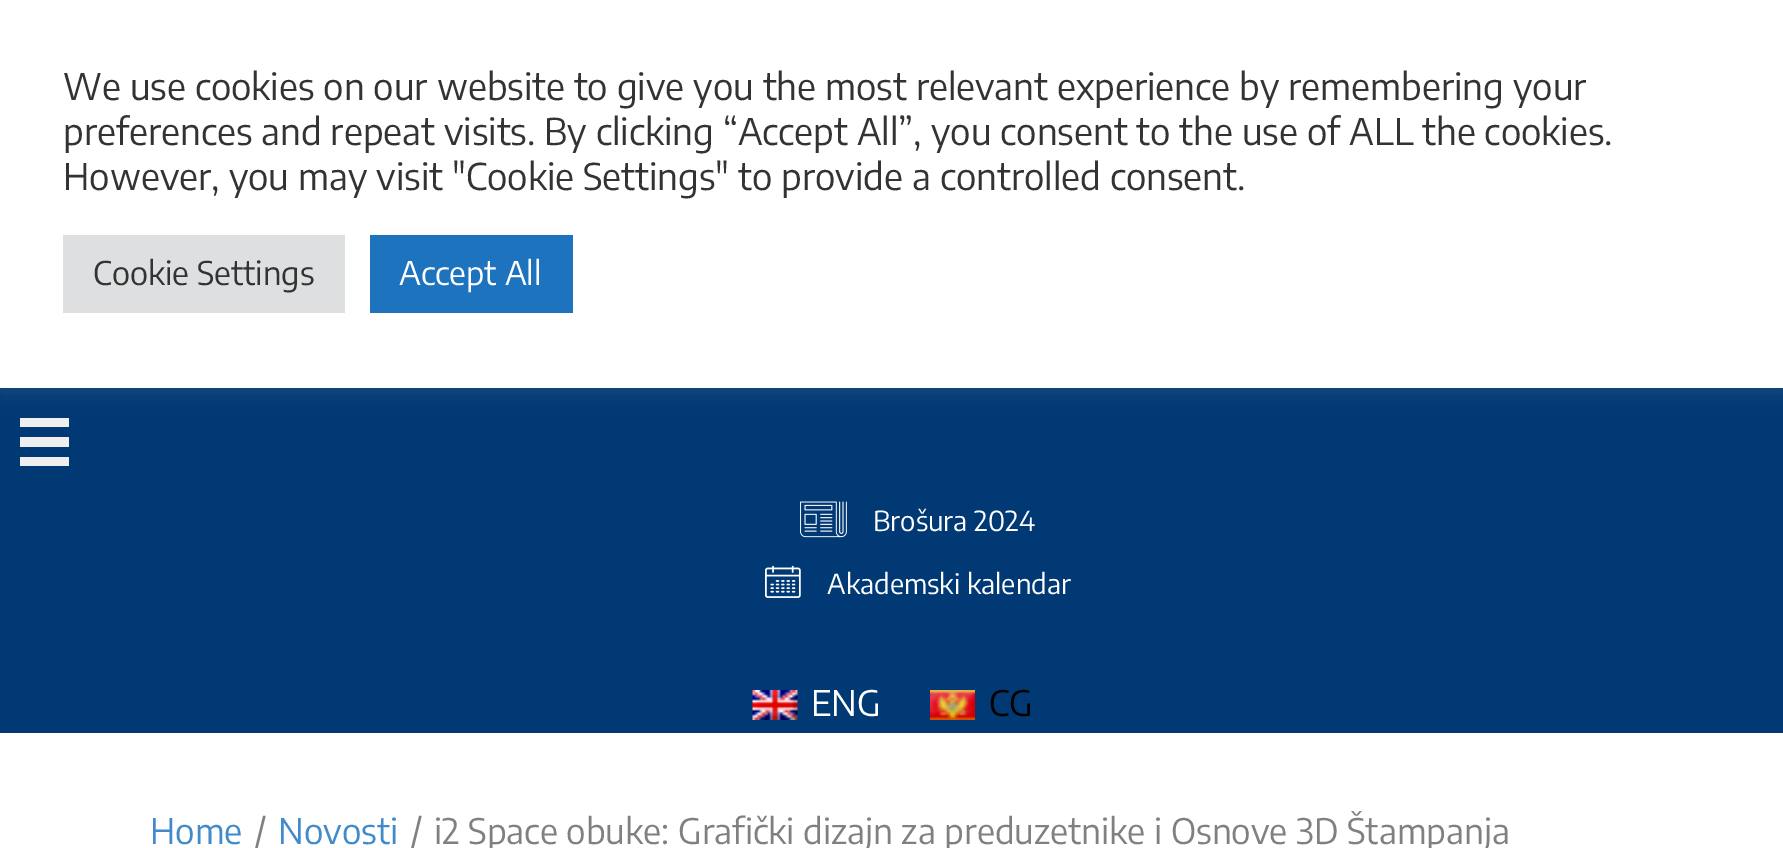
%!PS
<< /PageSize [1783 848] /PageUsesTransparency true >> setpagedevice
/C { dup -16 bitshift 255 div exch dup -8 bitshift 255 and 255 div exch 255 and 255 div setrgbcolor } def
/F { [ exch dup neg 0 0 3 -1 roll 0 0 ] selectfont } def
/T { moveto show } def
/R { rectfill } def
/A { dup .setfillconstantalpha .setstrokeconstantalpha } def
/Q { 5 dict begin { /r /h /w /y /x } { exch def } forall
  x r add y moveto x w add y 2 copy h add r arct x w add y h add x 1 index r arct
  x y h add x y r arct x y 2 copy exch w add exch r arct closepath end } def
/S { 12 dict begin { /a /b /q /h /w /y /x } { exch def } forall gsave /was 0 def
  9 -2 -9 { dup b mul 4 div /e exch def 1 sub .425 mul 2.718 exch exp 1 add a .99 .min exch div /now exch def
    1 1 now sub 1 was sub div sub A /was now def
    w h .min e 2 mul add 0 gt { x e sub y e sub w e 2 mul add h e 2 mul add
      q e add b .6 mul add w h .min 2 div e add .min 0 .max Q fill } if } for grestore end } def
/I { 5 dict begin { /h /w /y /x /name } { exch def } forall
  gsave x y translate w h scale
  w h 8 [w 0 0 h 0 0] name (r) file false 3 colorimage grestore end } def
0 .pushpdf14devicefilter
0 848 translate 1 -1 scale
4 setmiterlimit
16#FFFFFF C
0 0 1783 848 R
16#003974 C
0 388 1783 345 R
16#EFEFEF C
20 418 49 9 R
16#ACABAB C
0 -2 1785 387 0 12.5 .3 S
16#FFFFFF C
0 0 1783 388 R
/EncodeSansCondensed-Regular 36.65 F
16#333333 C
(We use cookies on our website to give you the most relevant experience by remembering your) 63 100 T
(preferences and repeat visits. By clicking “Accept All”, you consent to the use of ALL the cookies.) 63 145 T
(However, you may visit "Cookie Settings" to provide a controlled consent.) 63 190 T
16#DEDFE0 C
63 235 282 78 R
/EncodeSansCondensed-Regular 32.5 F
16#333333 C
(Cookie Settings) 93 285 T
16#1E73BE C
370 235 203 78 R
16#FFFFFF C
(Accept All) 399 285 T
16#EFEFEF C
20 437 49 10 R
20 457 49 9 R
(1.rgb) 800 501 47 37 I
/EncodeSansCondensed-Regular 27.5 F
16#FFFFFF C
(Brošura 2024) 873 531 T
(2.rgb) 765 565 36 33 I
(Akademski kalendar) 827 594 T
(3.rgb) 752 690 46 30 I
/EncodeSansCondensed-Regular 35 F
(ENG) 811 716 T
(4.rgb) 930 690 45 30 I
16#000000 C
(CG) 989 716 T
16#428BCA C
(Home) 150 844 T
16#808080 C
(/) 255 844 T
16#428BCA C
(Novosti) 278 844 T
16#808080 C
(/) 411 844 T
(i2 Space obuke: Grafički dizajn za preduzetnike i Osnove 3D Štampanja) 434 844 T
.poppdf14devicefilter showpage
